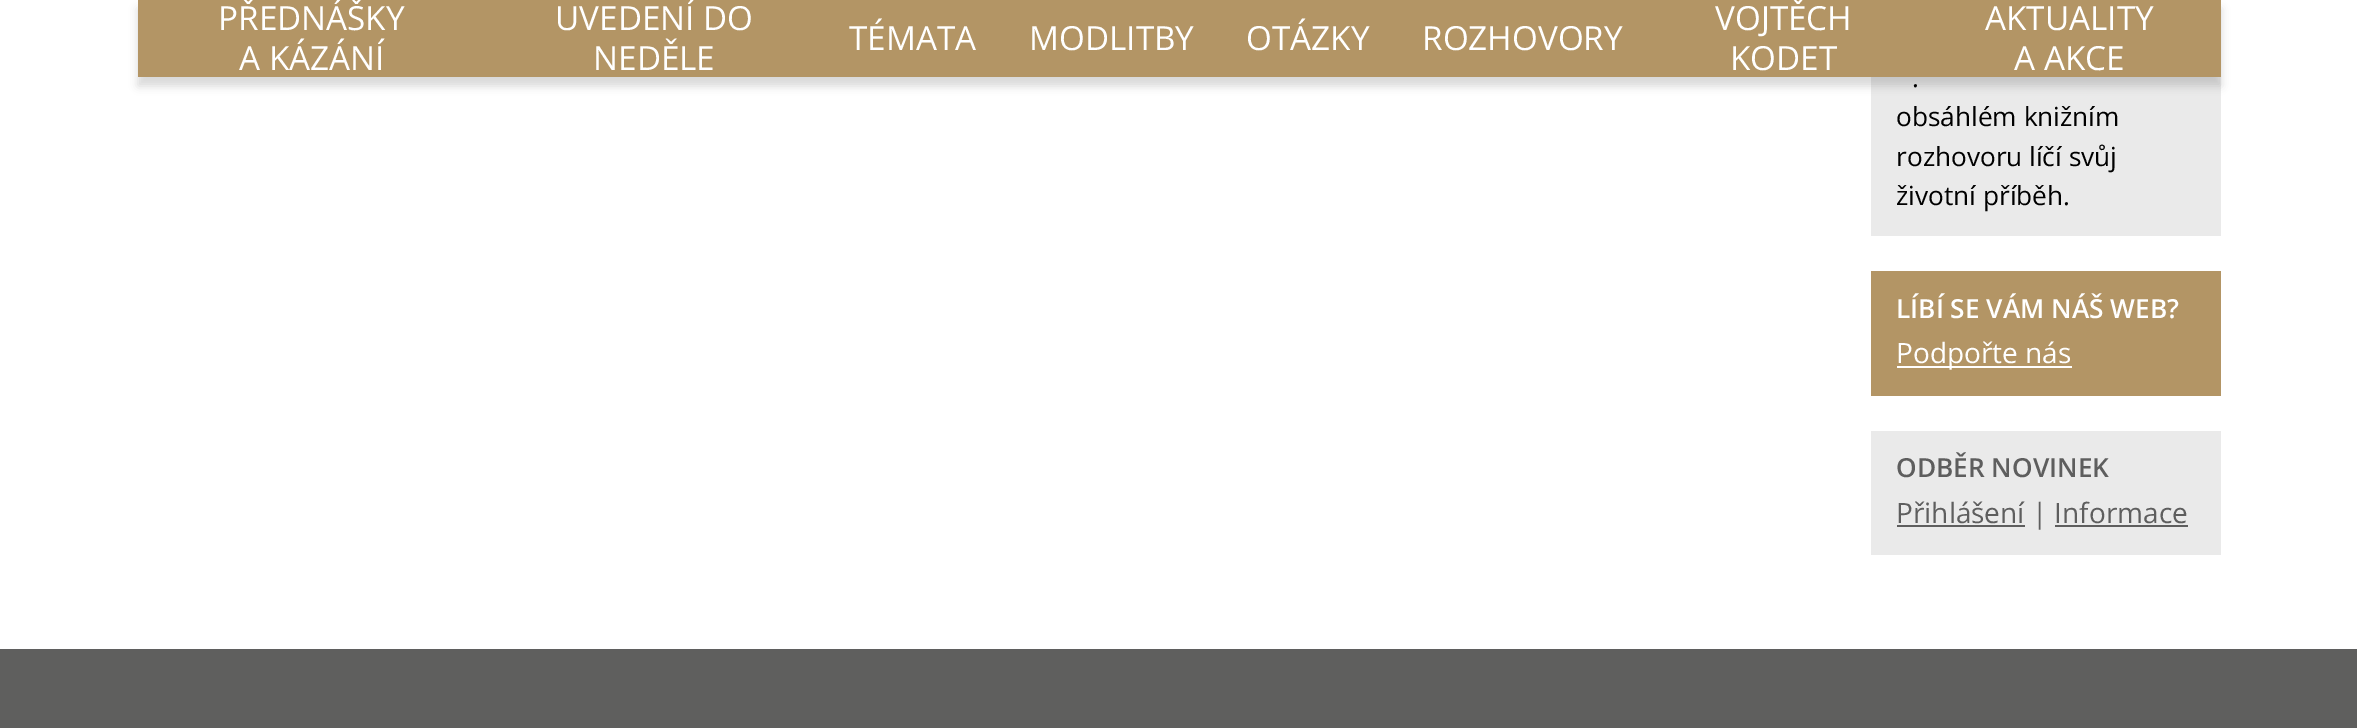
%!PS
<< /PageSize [2357 728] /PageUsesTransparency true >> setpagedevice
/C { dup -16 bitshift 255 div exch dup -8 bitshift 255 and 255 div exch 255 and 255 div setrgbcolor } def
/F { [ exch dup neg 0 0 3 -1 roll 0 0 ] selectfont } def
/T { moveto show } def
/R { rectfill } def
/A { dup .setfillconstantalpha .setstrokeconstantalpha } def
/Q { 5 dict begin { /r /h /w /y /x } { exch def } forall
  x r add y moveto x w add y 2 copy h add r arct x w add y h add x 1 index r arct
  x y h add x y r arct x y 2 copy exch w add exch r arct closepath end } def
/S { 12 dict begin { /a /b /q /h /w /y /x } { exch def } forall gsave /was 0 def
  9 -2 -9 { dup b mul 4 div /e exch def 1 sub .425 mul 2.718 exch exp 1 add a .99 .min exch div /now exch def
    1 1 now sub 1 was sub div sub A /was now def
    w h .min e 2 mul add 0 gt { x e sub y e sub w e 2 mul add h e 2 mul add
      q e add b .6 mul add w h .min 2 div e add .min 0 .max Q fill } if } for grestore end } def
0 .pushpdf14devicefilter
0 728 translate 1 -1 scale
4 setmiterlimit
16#FFFFFF C
0 0 2357 728 R
16#EAEAEA C
1871 77 350 159 R
16#000000 C
138 9 2083 77 0 4.5 .15 S
16#B39565 C
138 0 2083 77 R
/OpenSans-Regular 33.25 F
16#FFFFFF C
(PŘEDNÁŠKY) 218 30 T
(A KÁZÁNÍ) 239 70 T
(UVEDENÍ DO) 555 30 T
(NEDĚLE) 593 70 T
(TÉMATA) 849 50 T
(MODLITBY) 1029 50 T
(OTÁZKY) 1246 50 T
(ROZHOVORY) 1422 50 T
(VOJTĚCH) 1715 30 T
(KODET) 1730 70 T
(AKTUALITY) 1985 30 T
(A AKCE) 2014 70 T
/OpenSans-Regular 26.25 F
16#000000 C
(.) 1912 87 T
(obsáhlém knižním) 1896 126 T
(rozhovoru líčí svůj) 1896 166 T
(životní příběh.) 1896 205 T
16#B39565 C
1871 271 350 125 R
/OpenSans-SemiBold 26.25 F
16#FFFFFF C
(LÍBÍ SE VÁM NÁŠ WEB?) 1896 318 T
1897 366 175 2 R
/OpenSans-Regular 28 F
(Podpořte nás) 1896 363 T
16#EAEAEA C
1871 431 350 124 R
/OpenSans-SemiBold 26.25 F
16#5E5E5E C
(ODBĚR NOVINEK) 1896 477 T
1897 525 128 2 R
/OpenSans-Regular 28 F
(Přihlášení | Informace) 1896 523 T
2055 525 133 2 R
16#5F5F5E C
0 649 2357 79 R
.poppdf14devicefilter showpage
